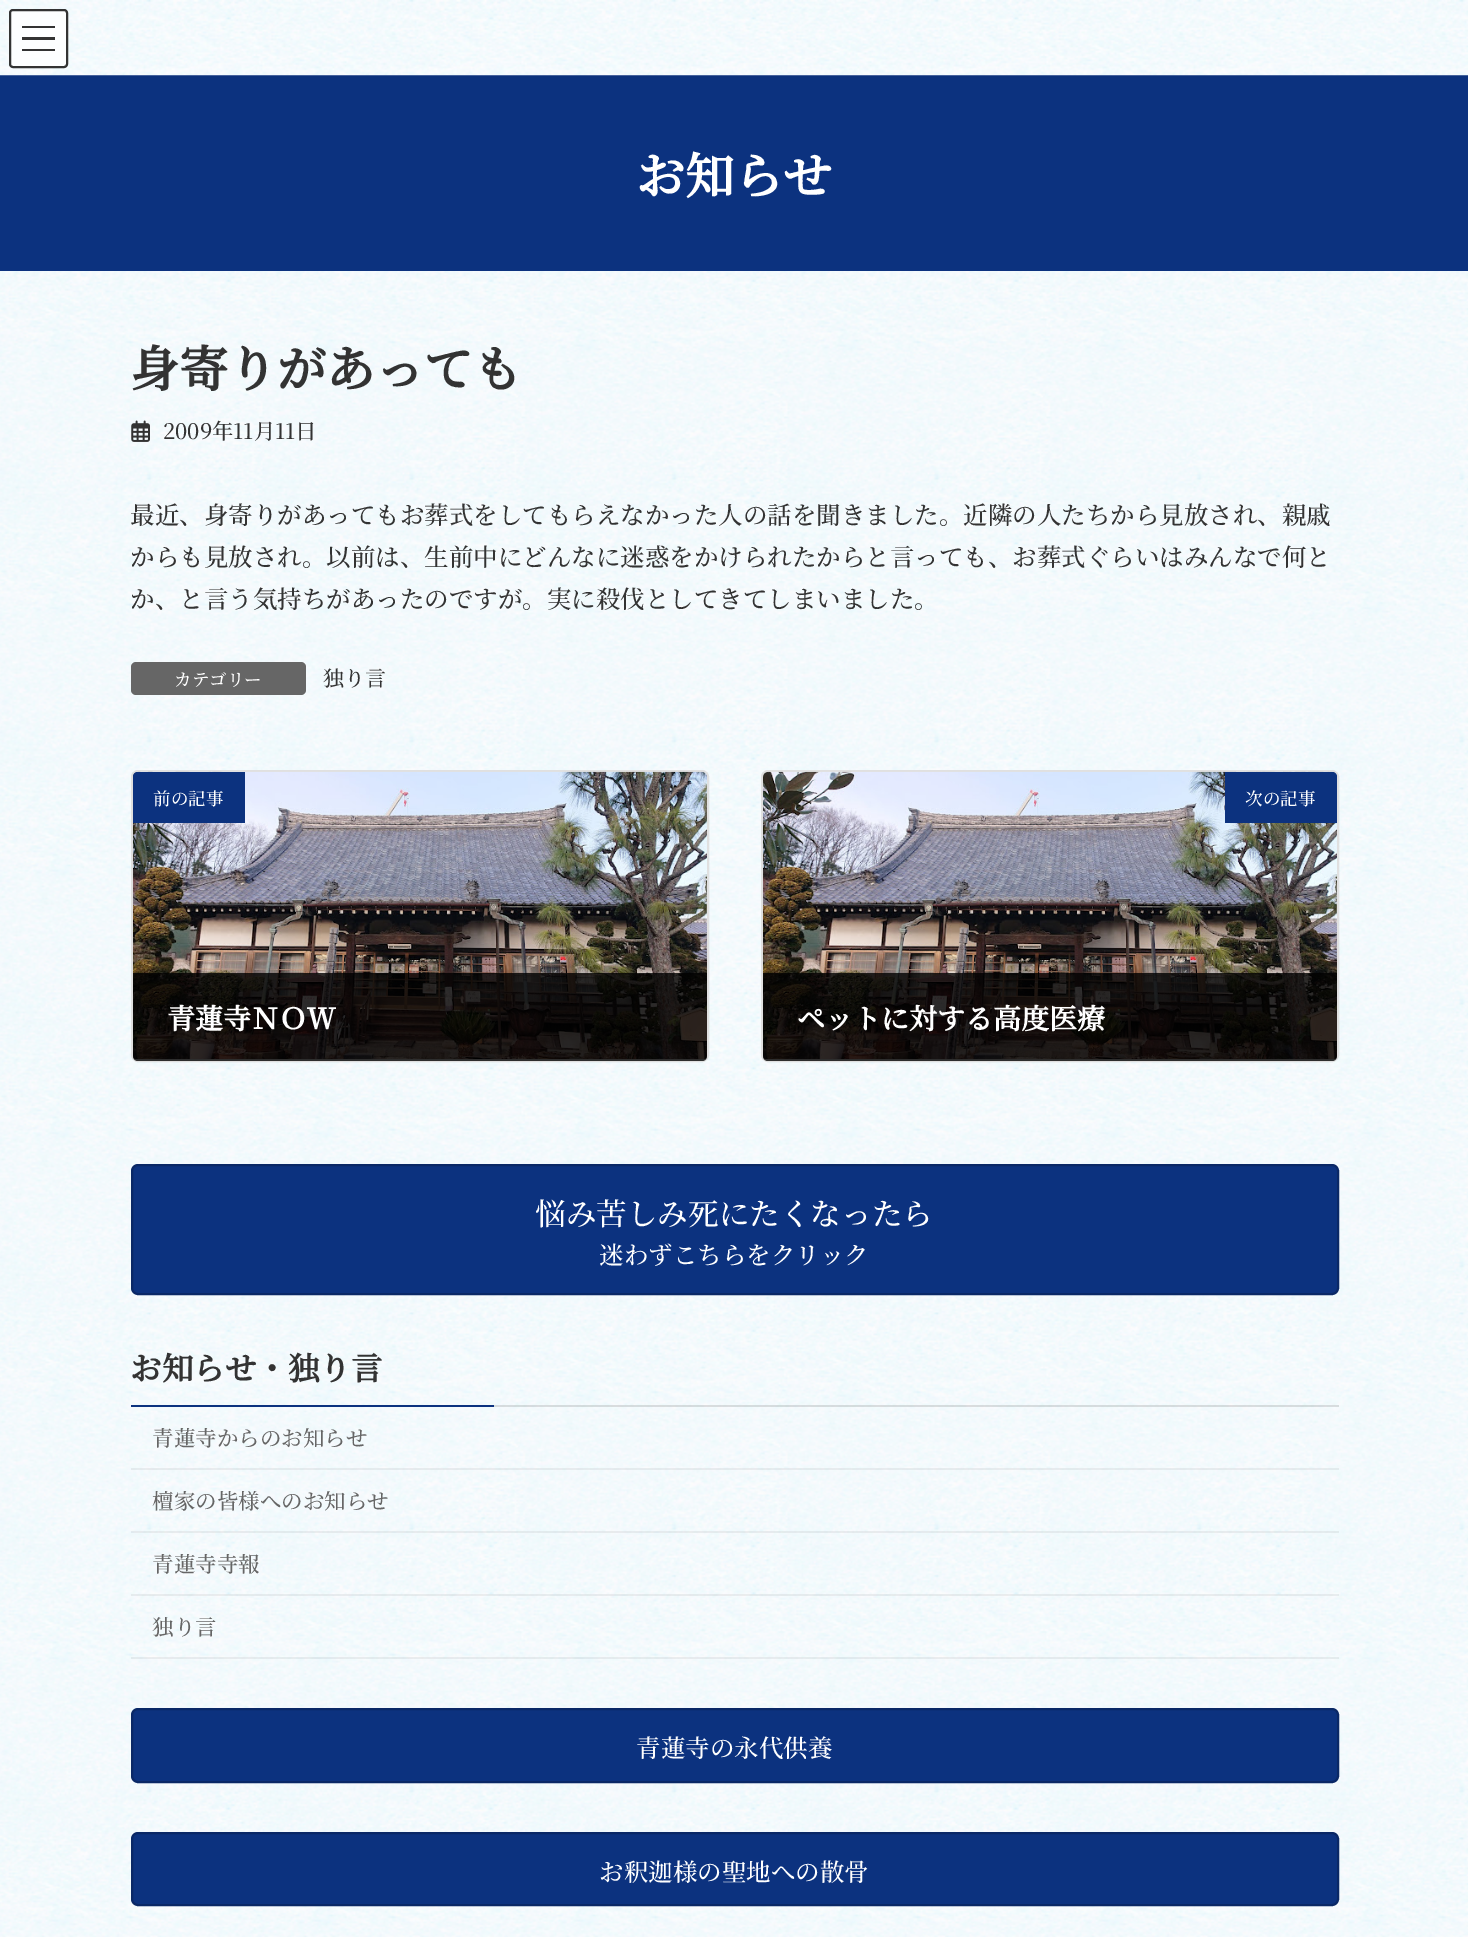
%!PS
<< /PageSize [1468 1937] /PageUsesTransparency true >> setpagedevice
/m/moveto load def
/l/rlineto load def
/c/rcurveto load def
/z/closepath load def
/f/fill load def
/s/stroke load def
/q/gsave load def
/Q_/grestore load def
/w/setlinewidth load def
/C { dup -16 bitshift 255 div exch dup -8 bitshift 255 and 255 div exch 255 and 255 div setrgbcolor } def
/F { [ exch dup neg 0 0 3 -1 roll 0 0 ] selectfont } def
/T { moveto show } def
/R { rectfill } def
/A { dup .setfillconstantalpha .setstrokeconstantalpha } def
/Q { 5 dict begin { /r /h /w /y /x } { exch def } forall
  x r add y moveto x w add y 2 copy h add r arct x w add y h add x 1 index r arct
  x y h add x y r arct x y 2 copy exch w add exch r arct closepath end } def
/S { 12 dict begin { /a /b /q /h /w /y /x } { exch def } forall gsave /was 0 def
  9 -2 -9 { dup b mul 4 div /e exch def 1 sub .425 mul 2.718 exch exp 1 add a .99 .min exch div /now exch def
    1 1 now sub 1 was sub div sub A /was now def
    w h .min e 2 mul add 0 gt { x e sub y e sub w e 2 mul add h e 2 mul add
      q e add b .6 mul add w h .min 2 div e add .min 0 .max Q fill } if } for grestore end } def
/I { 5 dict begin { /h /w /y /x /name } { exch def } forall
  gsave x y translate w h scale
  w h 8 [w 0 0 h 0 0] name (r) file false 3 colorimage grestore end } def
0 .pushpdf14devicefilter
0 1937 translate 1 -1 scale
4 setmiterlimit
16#FFFFFF C
0 0 1468 1937 R
(1.rgb) 0 271 1468 1666 I
16#0C327F C
0 75 1468 196 R
16#000000 C
0 2 1468 75 0 2.5 .05 S
(2.rgb) 0 0 1468 76 I
0.8 A
16#FFFFFF C
9 9 59 59 4 Q f
1 A
16#333333 C
22 26 33 2 R
0.8 A
16#000000 C
22 37 33 3 R
1 A
16#333333 C
22 49 33 2 R
2 w
10 10 57 57 3 Q s
/NotoSerifJP-Bold 49 F
16#FFFFFF C
(お知らせ) 636 194 T
16#333333 C
(身寄りがあっても) 130 387 T
(3.rgb) 131 420 19 22 I
/NotoSerifJP-ExtraLight 21.5 F
(2009年11月11日) 163 439 T
/NotoSerifJP-ExtraLight 24.5 F
(最近、身寄りがあってもお葬式をしてもらえなかった人の話を聞きました。近隣の人たちから見放され、親戚) 130 524 T
(からも見放され。以前は、生前中にどんなに迷惑をかけられたからと言っても、お葬式ぐらいはみんなで何と) 130 566 T
(か、と言う気持ちがあったのですが。実に殺伐としてきてしまいました。) 130 608 T
16#666666 C
131 662 175 33 5 Q f
/NotoSerifJP-ExtraLight 17.5 F
16#FFFFFF C
(カテゴリー) 174 686 T
/NotoSerifJP-ExtraLight 21 F
16#333333 C
(独り言) 323 686 T
16#FFFFFF C
131 770 578 292 7 Q f
0.12 A
16#000000 C
132 771 576 290 6 Q s
1 A
(4.rgb) 133 771 574 290 I
q
133 772 574 289 5 Q clip newpath
16#E5E5E5 C
133 1059 574 2 R
Q_
16#0C327F C
138 772 m 107 0 l 0 51 l -112 0 l 0 -46 l 0 -3 2 -5 5 -5 c z f
/NotoSerifJP-ExtraLight 17.5 F
16#FFFFFF C
(前の記事) 153 805 T
0.8 A
16#000000 C
133 973 m 574 0 l 0 83 l 0 3 -2 5 -5 5 c -564 0 l -3 0 -5 -2 -5 -5 c z f
0.06 A
191 1054 1 2 R
/NotoSerifJP-Bold 28 F
1 A
16#FFFFFF C
(青蓮寺ＮＯＷ) 167 1029 T
761 770 578 292 7 Q f
0.12 A
16#000000 C
762 771 576 290 6 Q s
1 A
(5.rgb) 763 771 574 290 I
q
763 772 574 289 5 Q clip newpath
16#E5E5E5 C
763 1059 574 2 R
Q_
16#0C327F C
1225 772 m 107 0 l 3 0 5 2 5 5 c 0 46 l -112 0 l z f
/NotoSerifJP-ExtraLight 17.5 F
16#FFFFFF C
(次の記事) 1245 805 T
0.8 A
16#000000 C
763 973 m 574 0 l 0 83 l 0 3 -2 5 -5 5 c -564 0 l -3 0 -5 -2 -5 -5 c z f
0.06 A
821 1054 1 2 R
/NotoSerifJP-Bold 28 F
1 A
16#FFFFFF C
(ペットに対する高度医療) 797 1029 T
16#0C327F C
132 1165 1206 129 6 Q q f Q_
16#0A2866 C
s
/NotoSerifJP-ExtraLight 30.6 F
16#FFFFFF C
(悩み苦しみ死にたくなったら) 535 1225 T
/NotoSerifJP-ExtraLight 24.5 F
(迷わずこちらをクリック) 599 1264 T
0.12 A
16#000000 C
494 1405 845 2 R
/NotoSerifJP-Bold 31.5 F
1 A
16#333333 C
(お知らせ・独り言) 130 1380 T
16#0C327F C
131 1405 363 2 R
0.06 A
16#000000 C
131 1468 1208 2 R
/NotoSerifJP-ExtraLight 21.5 F
1 A
16#666666 C
(青蓮寺からのお知らせ) 152 1446 T
0.06 A
16#000000 C
131 1531 1208 2 R
1 A
16#666666 C
(檀家の皆様へのお知らせ) 152 1509 T
0.06 A
16#000000 C
131 1594 1208 2 R
1 A
16#666666 C
(青蓮寺寺報) 152 1572 T
0.06 A
16#000000 C
131 1657 1208 2 R
1 A
16#666666 C
(独り言) 152 1635 T
16#0C327F C
132 1709 1206 73 6 Q q f Q_
16#0A2866 C
s
/NotoSerifJP-ExtraLight 24.5 F
16#FFFFFF C
(青蓮寺の永代供養) 636 1757 T
16#0C327F C
132 1833 1206 72 6 Q q f Q_
16#0A2866 C
s
16#FFFFFF C
(お釈迦様の聖地への散骨) 599 1881 T
.poppdf14devicefilter showpage
